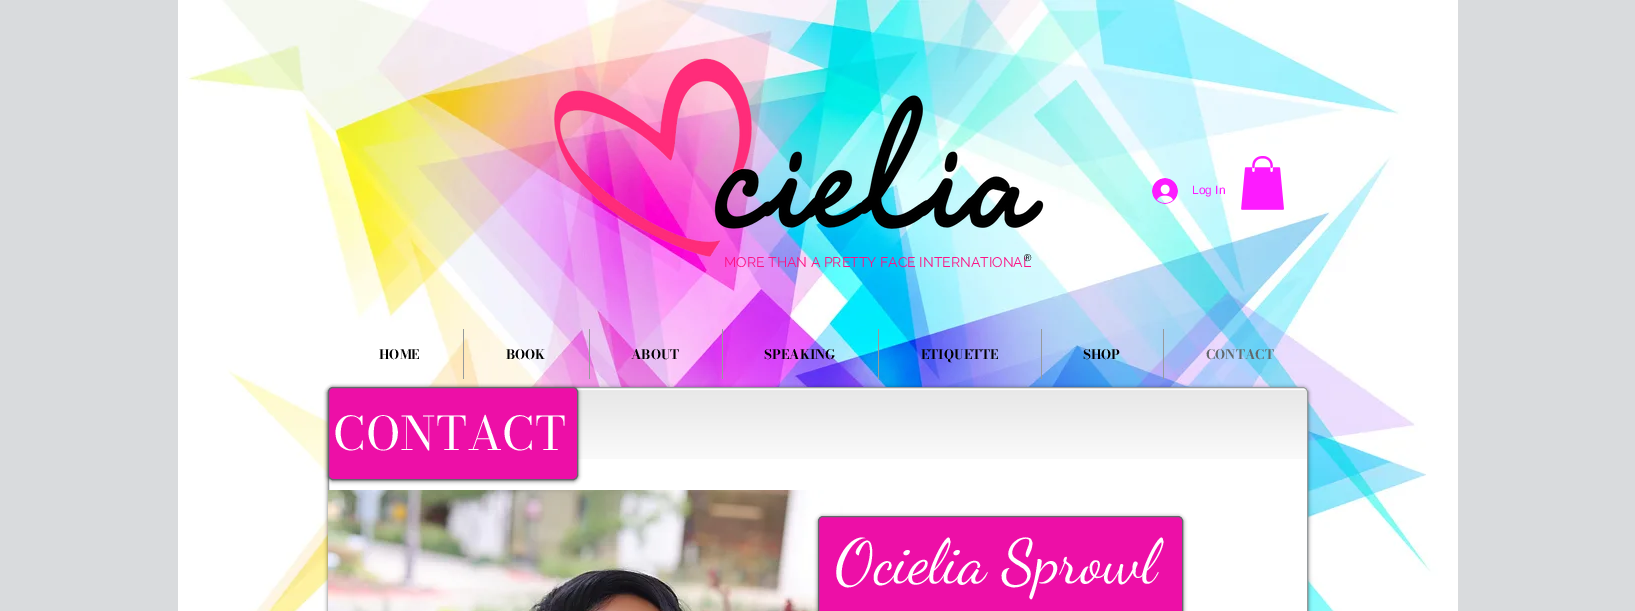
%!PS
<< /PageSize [1635 611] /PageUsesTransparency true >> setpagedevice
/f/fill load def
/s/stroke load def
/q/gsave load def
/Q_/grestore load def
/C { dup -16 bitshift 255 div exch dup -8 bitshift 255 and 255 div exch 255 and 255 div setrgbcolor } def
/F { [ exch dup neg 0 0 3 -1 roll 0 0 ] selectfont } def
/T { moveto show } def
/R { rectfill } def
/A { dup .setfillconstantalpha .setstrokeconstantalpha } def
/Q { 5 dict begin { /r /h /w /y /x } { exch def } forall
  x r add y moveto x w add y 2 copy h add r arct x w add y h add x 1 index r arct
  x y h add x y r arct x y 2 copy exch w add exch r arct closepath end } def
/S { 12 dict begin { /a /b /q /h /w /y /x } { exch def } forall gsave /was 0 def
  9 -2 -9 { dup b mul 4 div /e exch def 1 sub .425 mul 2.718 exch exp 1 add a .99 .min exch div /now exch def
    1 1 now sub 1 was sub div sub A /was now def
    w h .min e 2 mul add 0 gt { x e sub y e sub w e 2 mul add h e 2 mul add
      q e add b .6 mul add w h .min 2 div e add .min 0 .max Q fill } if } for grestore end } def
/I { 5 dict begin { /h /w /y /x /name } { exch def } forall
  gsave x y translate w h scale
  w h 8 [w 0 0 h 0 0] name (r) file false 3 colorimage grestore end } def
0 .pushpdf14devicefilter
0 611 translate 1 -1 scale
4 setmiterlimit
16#D9DBDD C
0 0 1635 611 R
(1.rgb) 178 0 1280 611 I
(2.rgb) 554 58 490 199 I
(3.rgb) 1152 178 26 26 I
/LiberationSans-Regular 12 F
16#FD1BFF C
(Log In) 1192 194 T
(4.rgb) 1241 156 43 54 I
/Raleway-Regular 14 F
16#FC1484 C
(MORE THAN A PRETTY FACE INTERNATIONAL) 724 267 T
/LiberationSans-Regular 10 F
16#000000 C
(®) 1024 261 T
/BodoniModa-Bold 13 F
(HOME) 379 359 T
16#969A9C C
463 329 1 50 R
16#000000 C
(BOOK) 506 359 T
16#969A9C C
589 329 1 50 R
16#000000 C
(ABOUT) 631 359 T
16#969A9C C
722 329 1 50 R
16#000000 C
(SPEAKING) 764 359 T
16#969A9C C
878 329 1 50 R
16#000000 C
(ETIQUETTE) 921 359 T
16#969A9C C
1041 329 1 50 R
16#000000 C
(SHOP) 1083 359 T
16#969A9C C
1163 329 1 50 R
16#62686B C
(CONTACT) 1206 359 T
16#000000 C
328 388 980 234 5 2 .6 S
16#FFFFFF C
328 387 980 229 5 Q f
(5.rgb) 328 390 980 69 I
16#969A9C C
328.5 387.5 979 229 4.5 Q s
16#000000 C
328 388 250 93 5 2 .6 S
16#ED0FA7 C
328.5 387.5 249 92 4.5 Q q f Q_
16#62686B C
s
/BodoniModa-Regular 46 F
16#FFFFFF C
(CONTACT) 333 450 T
(6.rgb) 328 490 515 121 I
16#000000 C
818 517 365 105 5 2 .6 S
16#ED0FA7 C
818.5 516.5 364 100 4.5 Q q f Q_
16#62686B C
s
/DancingScript-Regular 62 F
16#FFFFFF C
(Ocielia Sprowl) 835 582 T
.poppdf14devicefilter showpage
